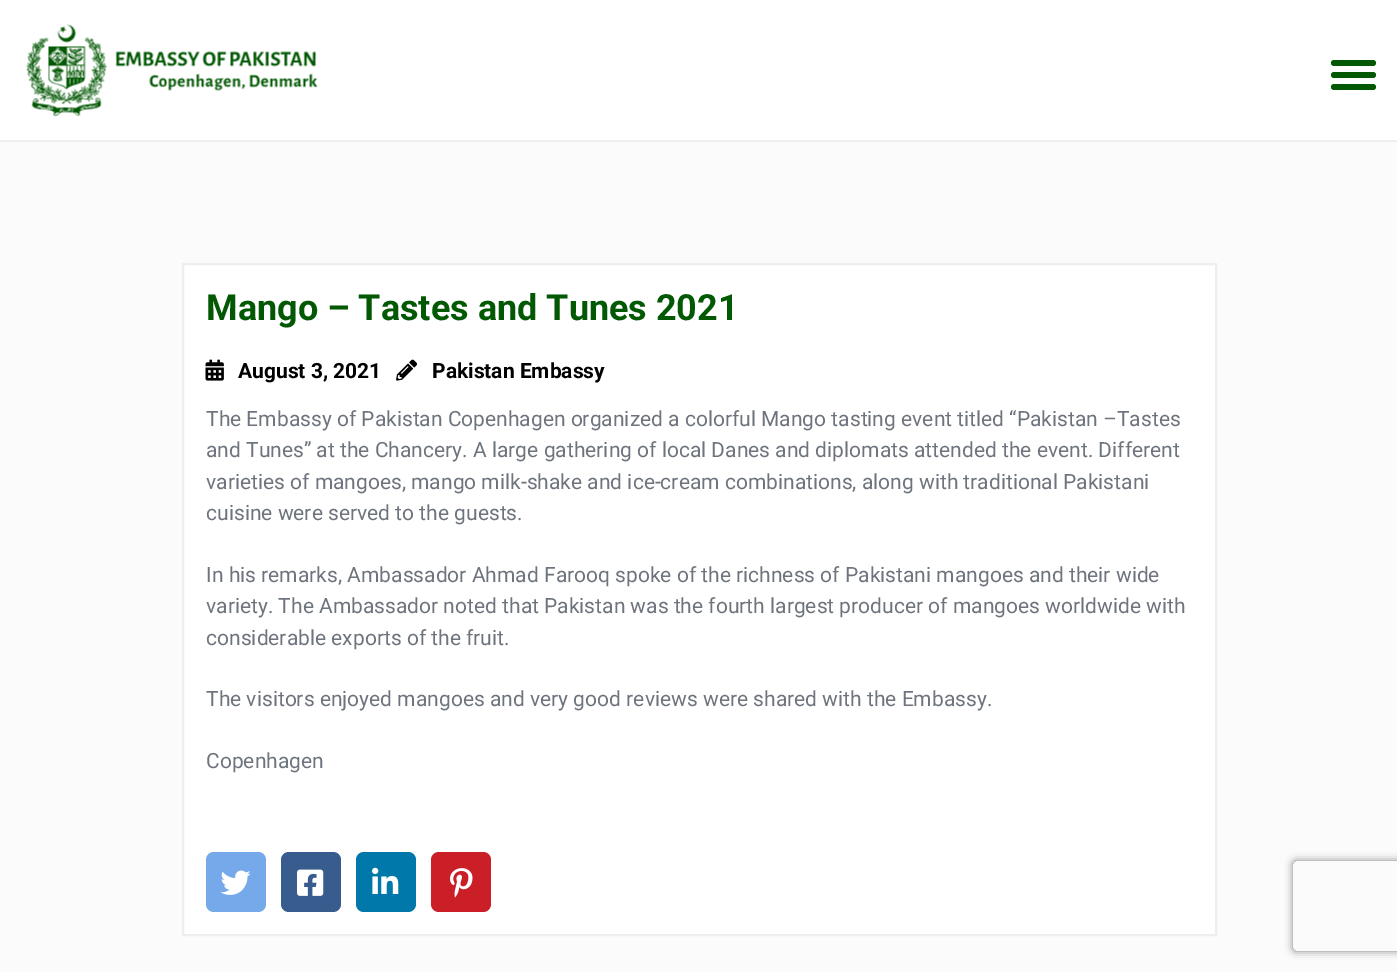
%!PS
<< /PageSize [1397 972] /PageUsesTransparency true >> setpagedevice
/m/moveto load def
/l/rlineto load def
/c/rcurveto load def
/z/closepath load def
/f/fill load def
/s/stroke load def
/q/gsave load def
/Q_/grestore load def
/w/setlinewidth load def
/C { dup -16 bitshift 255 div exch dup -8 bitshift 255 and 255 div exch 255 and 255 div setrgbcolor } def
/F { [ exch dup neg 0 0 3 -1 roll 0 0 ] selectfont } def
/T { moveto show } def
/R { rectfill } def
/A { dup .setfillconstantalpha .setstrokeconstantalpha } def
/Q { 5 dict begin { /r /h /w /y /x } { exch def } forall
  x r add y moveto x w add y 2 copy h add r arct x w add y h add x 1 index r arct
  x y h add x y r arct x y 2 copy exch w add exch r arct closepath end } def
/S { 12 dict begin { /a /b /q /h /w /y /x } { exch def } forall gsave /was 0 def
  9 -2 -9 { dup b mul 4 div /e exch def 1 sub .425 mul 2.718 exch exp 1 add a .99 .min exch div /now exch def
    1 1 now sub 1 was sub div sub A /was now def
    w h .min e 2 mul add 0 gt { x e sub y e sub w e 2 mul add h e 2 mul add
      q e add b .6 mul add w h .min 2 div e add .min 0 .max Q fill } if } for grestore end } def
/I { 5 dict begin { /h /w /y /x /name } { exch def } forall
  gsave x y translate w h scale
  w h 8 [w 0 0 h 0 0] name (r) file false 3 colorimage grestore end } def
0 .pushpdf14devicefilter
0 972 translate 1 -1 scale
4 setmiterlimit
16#FBFBFB C
0 0 1397 972 R
16#FFFFFF C
0 0 1397 140 R
16#025803 C
1334 60 m 19 0 l 0 6 l -19 0 l -1.5 0 -3 -1.5 -3 -3 c 0 -1.5 1.5 -3 3 -3 c z f
1353 60 m 20 0 l 1.5 0 3 1.5 3 3 c 0 1.5 -1.5 3 -3 3 c -20 0 l z f
1334 72 m 19 0 l 0 6 l -19 0 l -1.5 0 -3 -1.5 -3 -3 c 0 -1.5 1.5 -3 3 -3 c z f
1353 72 m 20 0 l 1.5 0 3 1.5 3 3 c 0 1.5 -1.5 3 -3 3 c -20 0 l z f
1334 84 m 19 0 l 0 6 l -19 0 l -1.5 0 -3 -1.5 -3 -3 c 0 -1.5 1.5 -3 3 -3 c z f
1353 84 m 20 0 l 1.5 0 3 1.5 3 3 c 0 1.5 -1.5 3 -3 3 c -20 0 l z f
16#EEEEEE C
0 140 1397 2 R
(1.rgb) 26 24 292 93 I
16#FFFFFF C
183 264 m 1033 0 l 0 671 l -1033 0 l z q f Q_
16#EEEEEE C
2 w
s
/Roboto-Bold 36 F
16#025803 C
(Mango – Tastes and Tunes 2021) 206 320 T
(2.rgb) 205 359 19 22 I
/Roboto-Bold 21 F
16#000000 C
(August 3, 2021) 238 378 T
(3.rgb) 396 359 21 22 I
(Pakistan Embassy) 432 378 T
/Roboto-Regular 21 F
16#6E747D C
(The Embassy of Pakistan Copenhagen organized a colorful Mango tasting event titled “Pakistan –Tastes) 206 426 T
(and Tunes” at the Chancery. A large gathering of local Danes and diplomats attended the event. Different) 206 457 T
(varieties of mangoes, mango milk-shake and ice-cream combinations, along with traditional Pakistani) 206 489 T
(cuisine were served to the guests.) 206 520 T
(In his remarks, Ambassador Ahmad Farooq spoke of the richness of Pakistani mangoes and their wide) 206 582 T
(variety. The Ambassador noted that Pakistan was the fourth largest producer of mangoes worldwide with) 206 613 T
(considerable exports of the fruit.) 206 645 T
(The visitors enjoyed mangoes and very good reviews were shared with the Embassy.) 206 706 T
(Copenhagen) 206 768 T
16#76A9EA C
206 852 60 60 8 Q f
(4.rgb) 220 870 31 25 I
16#395C8E C
281 852 60 60 8 Q f
(5.rgb) 297 869 27 27 I
16#0079AA C
356 852 60 60 8 Q f
(6.rgb) 372 867 27 27 I
16#CA1F27 C
431 852 60 60 8 Q f
(7.rgb) 450 868 23 30 I
q
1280 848 m 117 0 l 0 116 l -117 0 l z 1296 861 m 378 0 l 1.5 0 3 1.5 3 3 c 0 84 l 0 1.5 -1.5 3 -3 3 c -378 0 l -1.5 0 -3 -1.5 -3 -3 c 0 -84 l 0 -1.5 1.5 -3 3 -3 c z eoclip newpath
16#808080 C
1293 861 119 90 3 4 1 S
Q_
.poppdf14devicefilter showpage
